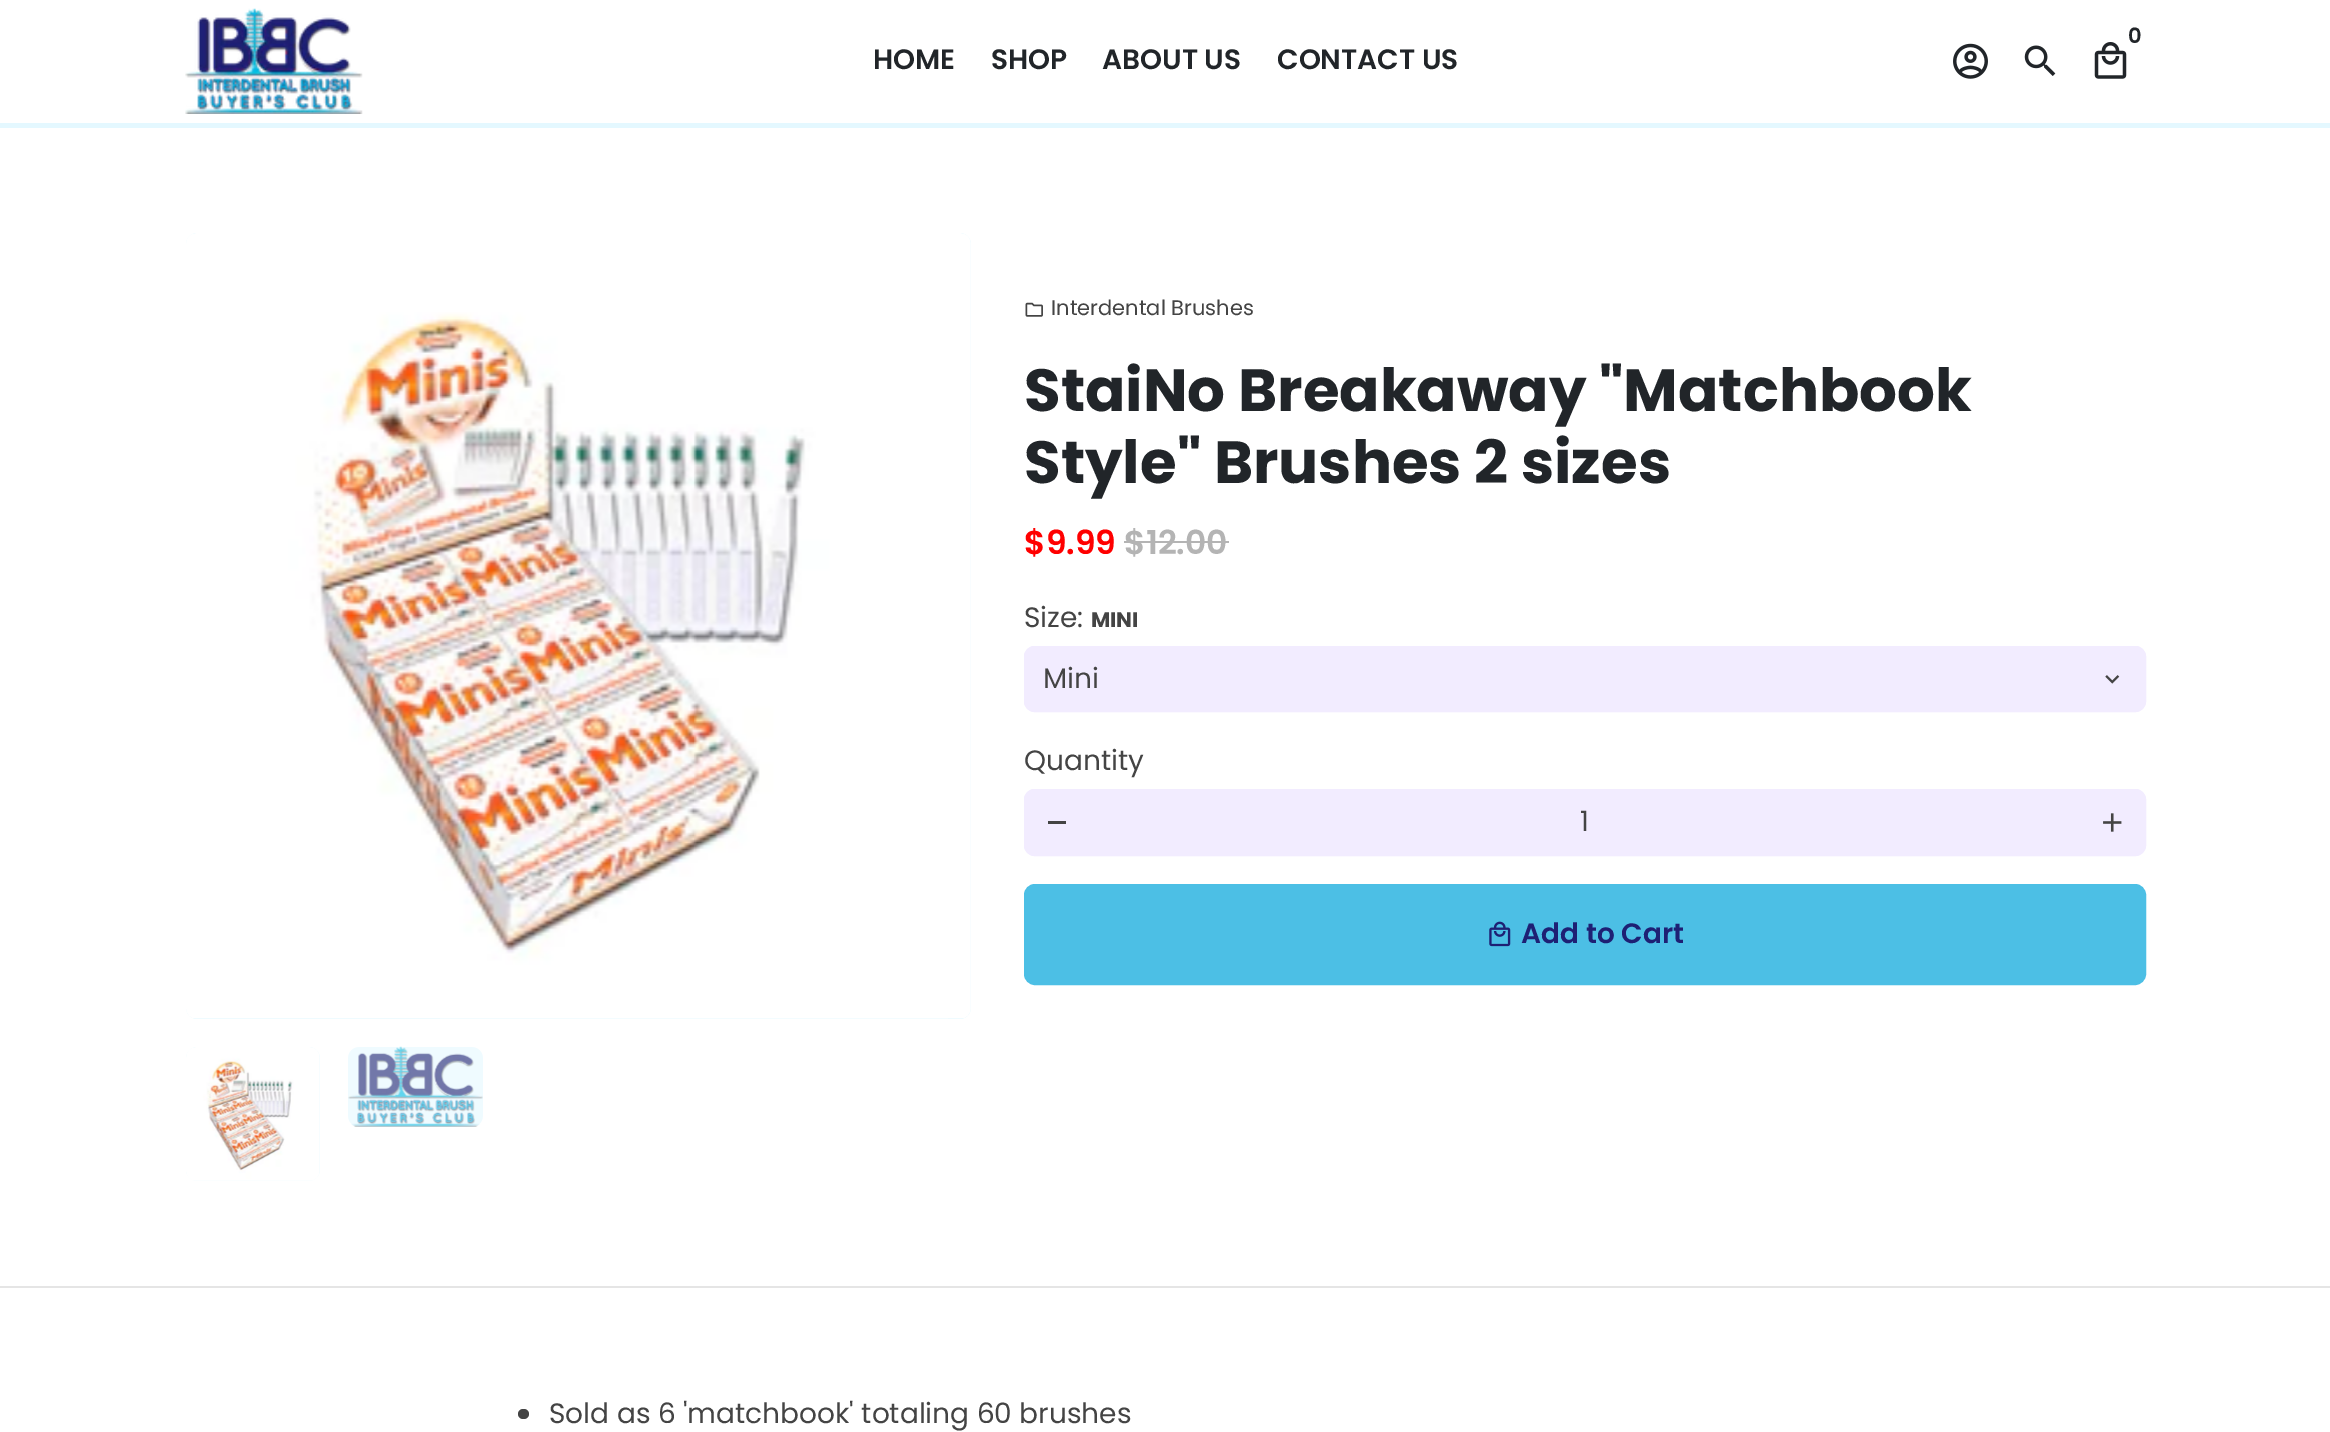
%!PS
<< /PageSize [2330 1432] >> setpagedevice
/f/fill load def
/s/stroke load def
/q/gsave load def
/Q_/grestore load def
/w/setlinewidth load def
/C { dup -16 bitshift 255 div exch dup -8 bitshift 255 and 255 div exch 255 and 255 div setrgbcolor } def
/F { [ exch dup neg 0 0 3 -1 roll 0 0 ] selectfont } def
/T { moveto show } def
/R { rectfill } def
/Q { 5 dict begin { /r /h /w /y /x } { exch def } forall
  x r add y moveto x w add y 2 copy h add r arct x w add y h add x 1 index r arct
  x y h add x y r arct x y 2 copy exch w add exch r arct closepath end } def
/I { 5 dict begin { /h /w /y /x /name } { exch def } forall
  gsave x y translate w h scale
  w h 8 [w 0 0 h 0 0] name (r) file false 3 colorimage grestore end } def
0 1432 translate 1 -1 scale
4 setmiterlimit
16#FFFFFF C
0 0 2330 1432 R
(1.rgb) 185 8 178 106 I
/Poppins-SemiBold 21 F
16#212529 C
(0) 2128 43 T
(2.rgb) 2094 42 33 37 I
(3.rgb) 1953 43 35 36 I
(4.rgb) 2024 45 32 31 I
/Poppins-SemiBold 28 F
(HOME) 873 69 T
(SHOP) 991 69 T
(ABOUT US) 1102 69 T
(CONTACT US) 1277 69 T
16#E4F8FF C
0 123 2330 5 R
186 233 785 786 11 Q f
(5.rgb) 186 233 785 786 I
186 1047 134 134 11 Q f
(6.rgb) 186 1047 134 134 I
16#EFFBFF C
348 1047 135 80 11 Q f
(7.rgb) 348 1046 135 81 I
(8.rgb) 1025 302 18 15 I
/Poppins-Regular 21 F
16#444444 C
(Interdental Brushes) 1051 315 T
/Poppins-Bold 59.5 F
16#212529 C
(StaiNo Breakaway "Matchbook) 1024 411 T
(Style" Brushes 2 sizes) 1024 483 T
/Poppins-SemiBold 33 F
16#FF0000 C
($9.99) 1024 554 T
16#B4B4B4 C
($12.00) 1124 554 T
1124 541 105 2 R
/Poppins-Regular 28 F
16#444444 C
(Size:) 1024 627 T
/Poppins-Bold 21 F
(MINI) 1091 627 T
16#F2ECFF C
1024 646 1122 66 11 Q f
(9.rgb) 2105 675 15 9 I
2 w
1025 647 1120 64 10 Q s
/Poppins-Regular 28 F
16#444444 C
(Mini) 1043 688 T
(Quantity) 1024 770 T
16#F2ECFF C
1025 790 1120 65 10 Q q f Q_
s
1024 789 66 67 11 Q f
16#444444 C
1048 821 18 3 R
(1) 1580 831 T
16#F2ECFF C
2079 789 67 67 11 Q f
(10.rgb) 2103 813 19 19 I
16#4CBFE5 C
1025 885 1120 99 10 Q q f Q_
s
(11.rgb) 1489 921 22 26 I
/Poppins-SemiBold 28 F
16#1E2074 C
(Add to Cart) 1521 943 T
16#E5E5E5 C
0 1286 2330 2 R
16#444444 C
518 1409 11 10 5 Q f
/Poppins-Regular 28 F
(Sold as 6 'matchbook' totaling 60 brushes) 549 1423 T
showpage
